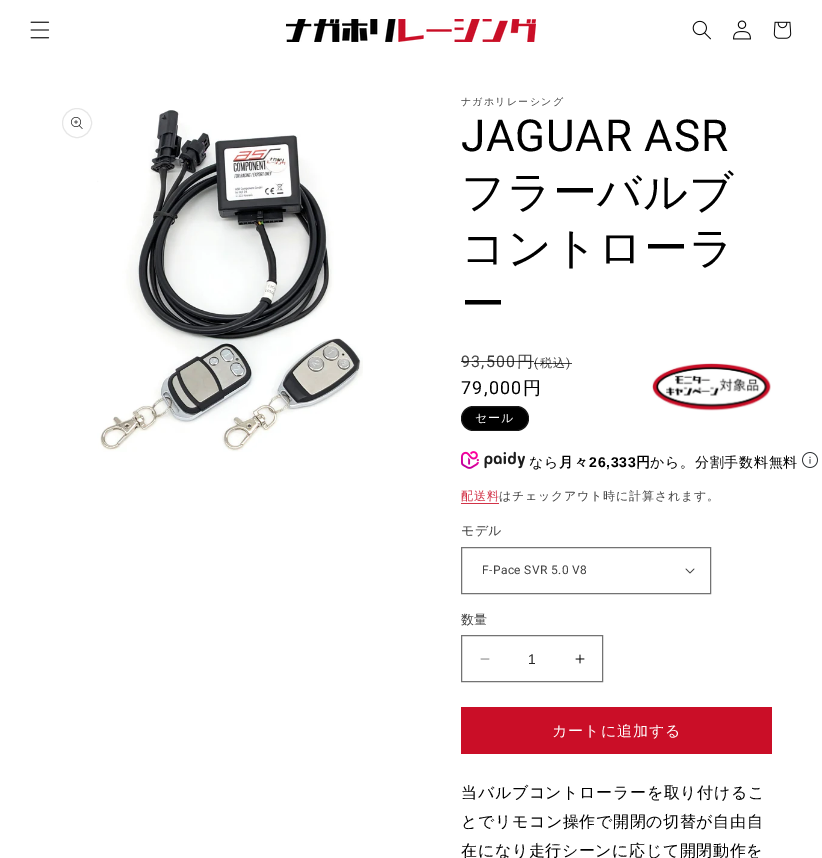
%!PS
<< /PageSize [822 858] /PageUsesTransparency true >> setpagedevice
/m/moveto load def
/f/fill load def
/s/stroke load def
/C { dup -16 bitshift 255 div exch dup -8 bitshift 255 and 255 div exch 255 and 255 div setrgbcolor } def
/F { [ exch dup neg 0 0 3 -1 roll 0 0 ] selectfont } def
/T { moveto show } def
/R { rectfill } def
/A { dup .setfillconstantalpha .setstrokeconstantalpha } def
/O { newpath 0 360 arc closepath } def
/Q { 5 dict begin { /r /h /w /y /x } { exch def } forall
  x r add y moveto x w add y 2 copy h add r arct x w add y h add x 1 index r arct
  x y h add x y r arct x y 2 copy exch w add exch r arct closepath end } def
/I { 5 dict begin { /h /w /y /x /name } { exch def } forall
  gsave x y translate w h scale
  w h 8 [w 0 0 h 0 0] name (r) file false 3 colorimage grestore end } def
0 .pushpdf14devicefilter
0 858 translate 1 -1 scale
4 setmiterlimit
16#FFFFFF C
0 0 822 858 R
(1.rgb) 30 21 20 18 I
(2.rgb) 286 19 250 23 I
(3.rgb) 692 20 19 20 I
(4.rgb) 733 20 18 20 I
(5.rgb) 773 21 19 18 I
16#E6E6E6 C
77 123 14.5 O s
(6.rgb) 71 117 12 12 I
(7.rgb) 97 110 266 342 I
/WenQuanYiZenHei-Medium 10 F
16#404040 C
461 105 m 1.25 0 (ナガホリレーシング) ashow
/Roboto-Regular 44 F
16#000000 C
461 151 m .75 0 (JAGUAR ASR) ashow
/WenQuanYiZenHei-Medium 44 F
461 207 m .75 0 (フラーバルブ) ashow
461 263 m .75 0 (コントローラ) ashow
461 319 m .75 0 (ー) ashow
/Roboto-Regular 16 F
16#404040 C
461 367 m 1.25 0 (93,500) ashow
/WenQuanYiZenHei-Medium 16 F
517 367 m 1.25 0 (円) ashow
0.75 A
16#000000 C
461 361 73 1 R
/Roboto-Regular 12 F
1 A
16#404040 C
534 367 m 1.25 0 (\() ashow
/WenQuanYiZenHei-Medium 12 F
540 367 m 1.25 0 (税込) ashow
/Roboto-Regular 12 F
566 367 m 1.25 0 (\)) ashow
0.75 A
16#000000 C
534 363 38 1 R
/Roboto-Regular 18 F
1 A
461 394 m 1.25 0 (79,000) ashow
/WenQuanYiZenHei-Medium 18 F
523 394 m 1.25 0 (円) ashow
461 406 68 25 12.5 Q f
0.1 A
16#FFFFFF C
461.5 406.5 67 24 12 Q s
/WenQuanYiZenHei-Medium 12 F
1 A
475 422 m 1 0 (セール) ashow
(8.rgb) 652 363 119 48 I
(9.rgb) 461 451 64 18 I
/WenQuanYiZenHei-Medium 14 F
16#000000 C
529 467 m .75 0 (なら) ashow
/WenQuanYiZenHei-Bold 14 F
559 467 m .75 0 (月々) ashow
/LiberationSans-Bold 14 F
589 467 m .75 0 (26,333) ashow
/WenQuanYiZenHei-Bold 14 F
636 467 m .75 0 (円) ashow
/WenQuanYiZenHei-Medium 14 F
650 467 m .75 0 (から。分割手数料無料) ashow
(10.rgb) 802 452 16 16 I
/WenQuanYiZenHei-Medium 12 F
16#D23247 C
461 500 m .75 0 (配送料) ashow
461 503 38 1 R
16#404040 C
499 500 m .75 0 (はチェックアウト時に計算されます。) ashow
/WenQuanYiZenHei-Medium 13 F
461 535 m .4 0 (モデル) ashow
(11.rgb) 685 568 10 6 I
16#737373 C
461.5 547.5 249 46 rectstroke
/Roboto-Regular 12 F
16#404040 C
482 574 m .4 0 (F-Pace SVR 5.0 V8) ashow
/WenQuanYiZenHei-Medium 13 F
461 624 m .4 0 (数量) ashow
(12.rgb) 480 658 10 2 I
(13.rgb) 575 654 10 10 I
16#737373 C
461.5 635.5 141 46 rectstroke
/LiberationSans-Regular 14 F
16#262626 C
(1) 528 664 T
16#CA0E27 C
461 707 311 47 R
/WenQuanYiZenHei-Medium 15 F
16#FFFFFF C
552 736 m 1 0 (カートに追加する) ashow
/WenQuanYiZenHei-Medium 16 F
16#000000 C
461 798 m .6 0 (当バルブコントローラーを取り付けるこ) ashow
461 827 m .6 0 (とでリモコン操作で開閉の切替が自由自) ashow
461 856 m .6 0 (在になり走行シーンに応じて開閉動作を) ashow
.poppdf14devicefilter showpage
